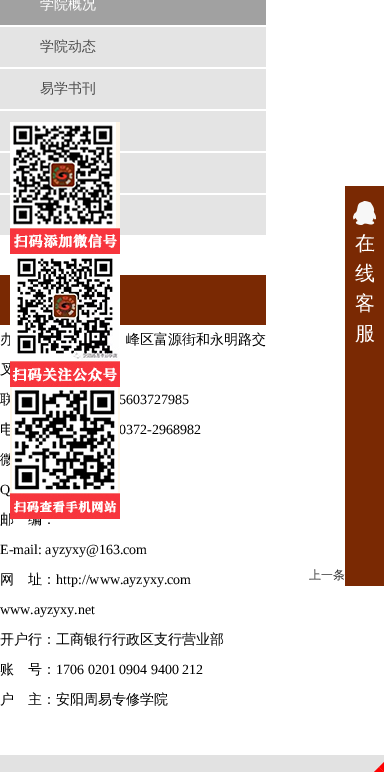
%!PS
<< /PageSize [384 772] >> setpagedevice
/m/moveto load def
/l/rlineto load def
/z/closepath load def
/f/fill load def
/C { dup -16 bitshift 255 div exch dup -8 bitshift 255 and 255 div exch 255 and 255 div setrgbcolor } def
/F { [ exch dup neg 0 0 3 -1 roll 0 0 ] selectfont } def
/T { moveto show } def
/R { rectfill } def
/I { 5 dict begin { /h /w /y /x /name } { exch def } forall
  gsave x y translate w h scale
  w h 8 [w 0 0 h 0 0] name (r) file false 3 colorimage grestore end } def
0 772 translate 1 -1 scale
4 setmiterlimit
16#FFFFFF C
0 0 384 772 R
16#A1A1A1 C
0 0 266 25 R
/WenQuanYiZenHei-Medium 14 F
16#FFFFFF C
(学院概况) 40 9 T
16#E4E4E4 C
0 27 266 40 R
16#4D4D4D C
(学院动态) 40 51 T
16#E4E4E4 C
0 69 266 40 R
16#4D4D4D C
(易学书刊) 40 93 T
16#E4E4E4 C
0 111 266 40 R
0 153 266 40 R
0 195 266 40 R
16#7A2903 C
0 275 266 50 R
16#000000 C
(办) 0 344 T
(峰区富源街和永明路交) 126 344 T
(叉) 0 374 T
(联) 0 404 T
/LiberationSerif-Regular 14 F
(5603727985) 119 404 T
/WenQuanYiZenHei-Medium 14 F
(电) 0 434 T
/LiberationSerif-Regular 14 F
(0372-2968982) 119 434 T
/WenQuanYiZenHei-Medium 14 F
(微) 0 464 T
/LiberationSerif-Regular 14 F
(Q) 0 494 T
/WenQuanYiZenHei-Medium 14 F
(邮　编：) 0 524 T
/LiberationSerif-Regular 14 F
(E-mail: ayzyxy@163.com) 0 554 T
/WenQuanYiZenHei-Medium 14 F
(网　址：) 0 584 T
/LiberationSerif-Regular 14 F
(http://www.ayzyxy.com) 56 584 T
(www.ayzyxy.net) 0 614 T
/WenQuanYiZenHei-Medium 14 F
(开户行：工商银行行政区支行营业部) 0 644 T
(账　号：) 0 674 T
/LiberationSerif-Regular 14 F
(1706 0201 0904 9400 212) 56 674 T
/WenQuanYiZenHei-Medium 14 F
(户　主：安阳周易专修学院) 0 704 T
/WenQuanYiZenHei-Medium 12 F
16#2E2E2E C
(上一条) 309 579 T
16#E2E2E2 C
0 755 384 17 R
(1.rgb) 10 122 110 397 I
16#7A2903 C
345 186 39 400 R
(2.rgb) 353 201 23 24 I
/WenQuanYiZenHei-Medium 20 F
16#FFFFFF C
(在) 355 250 T
(线) 355 280 T
(客) 355 310 T
(服) 355 340 T
16#FF0000 C
384 762 m 0 10 l -5 -5 l z f
384 772 m -10 0 l 5 -5 l z f
showpage
